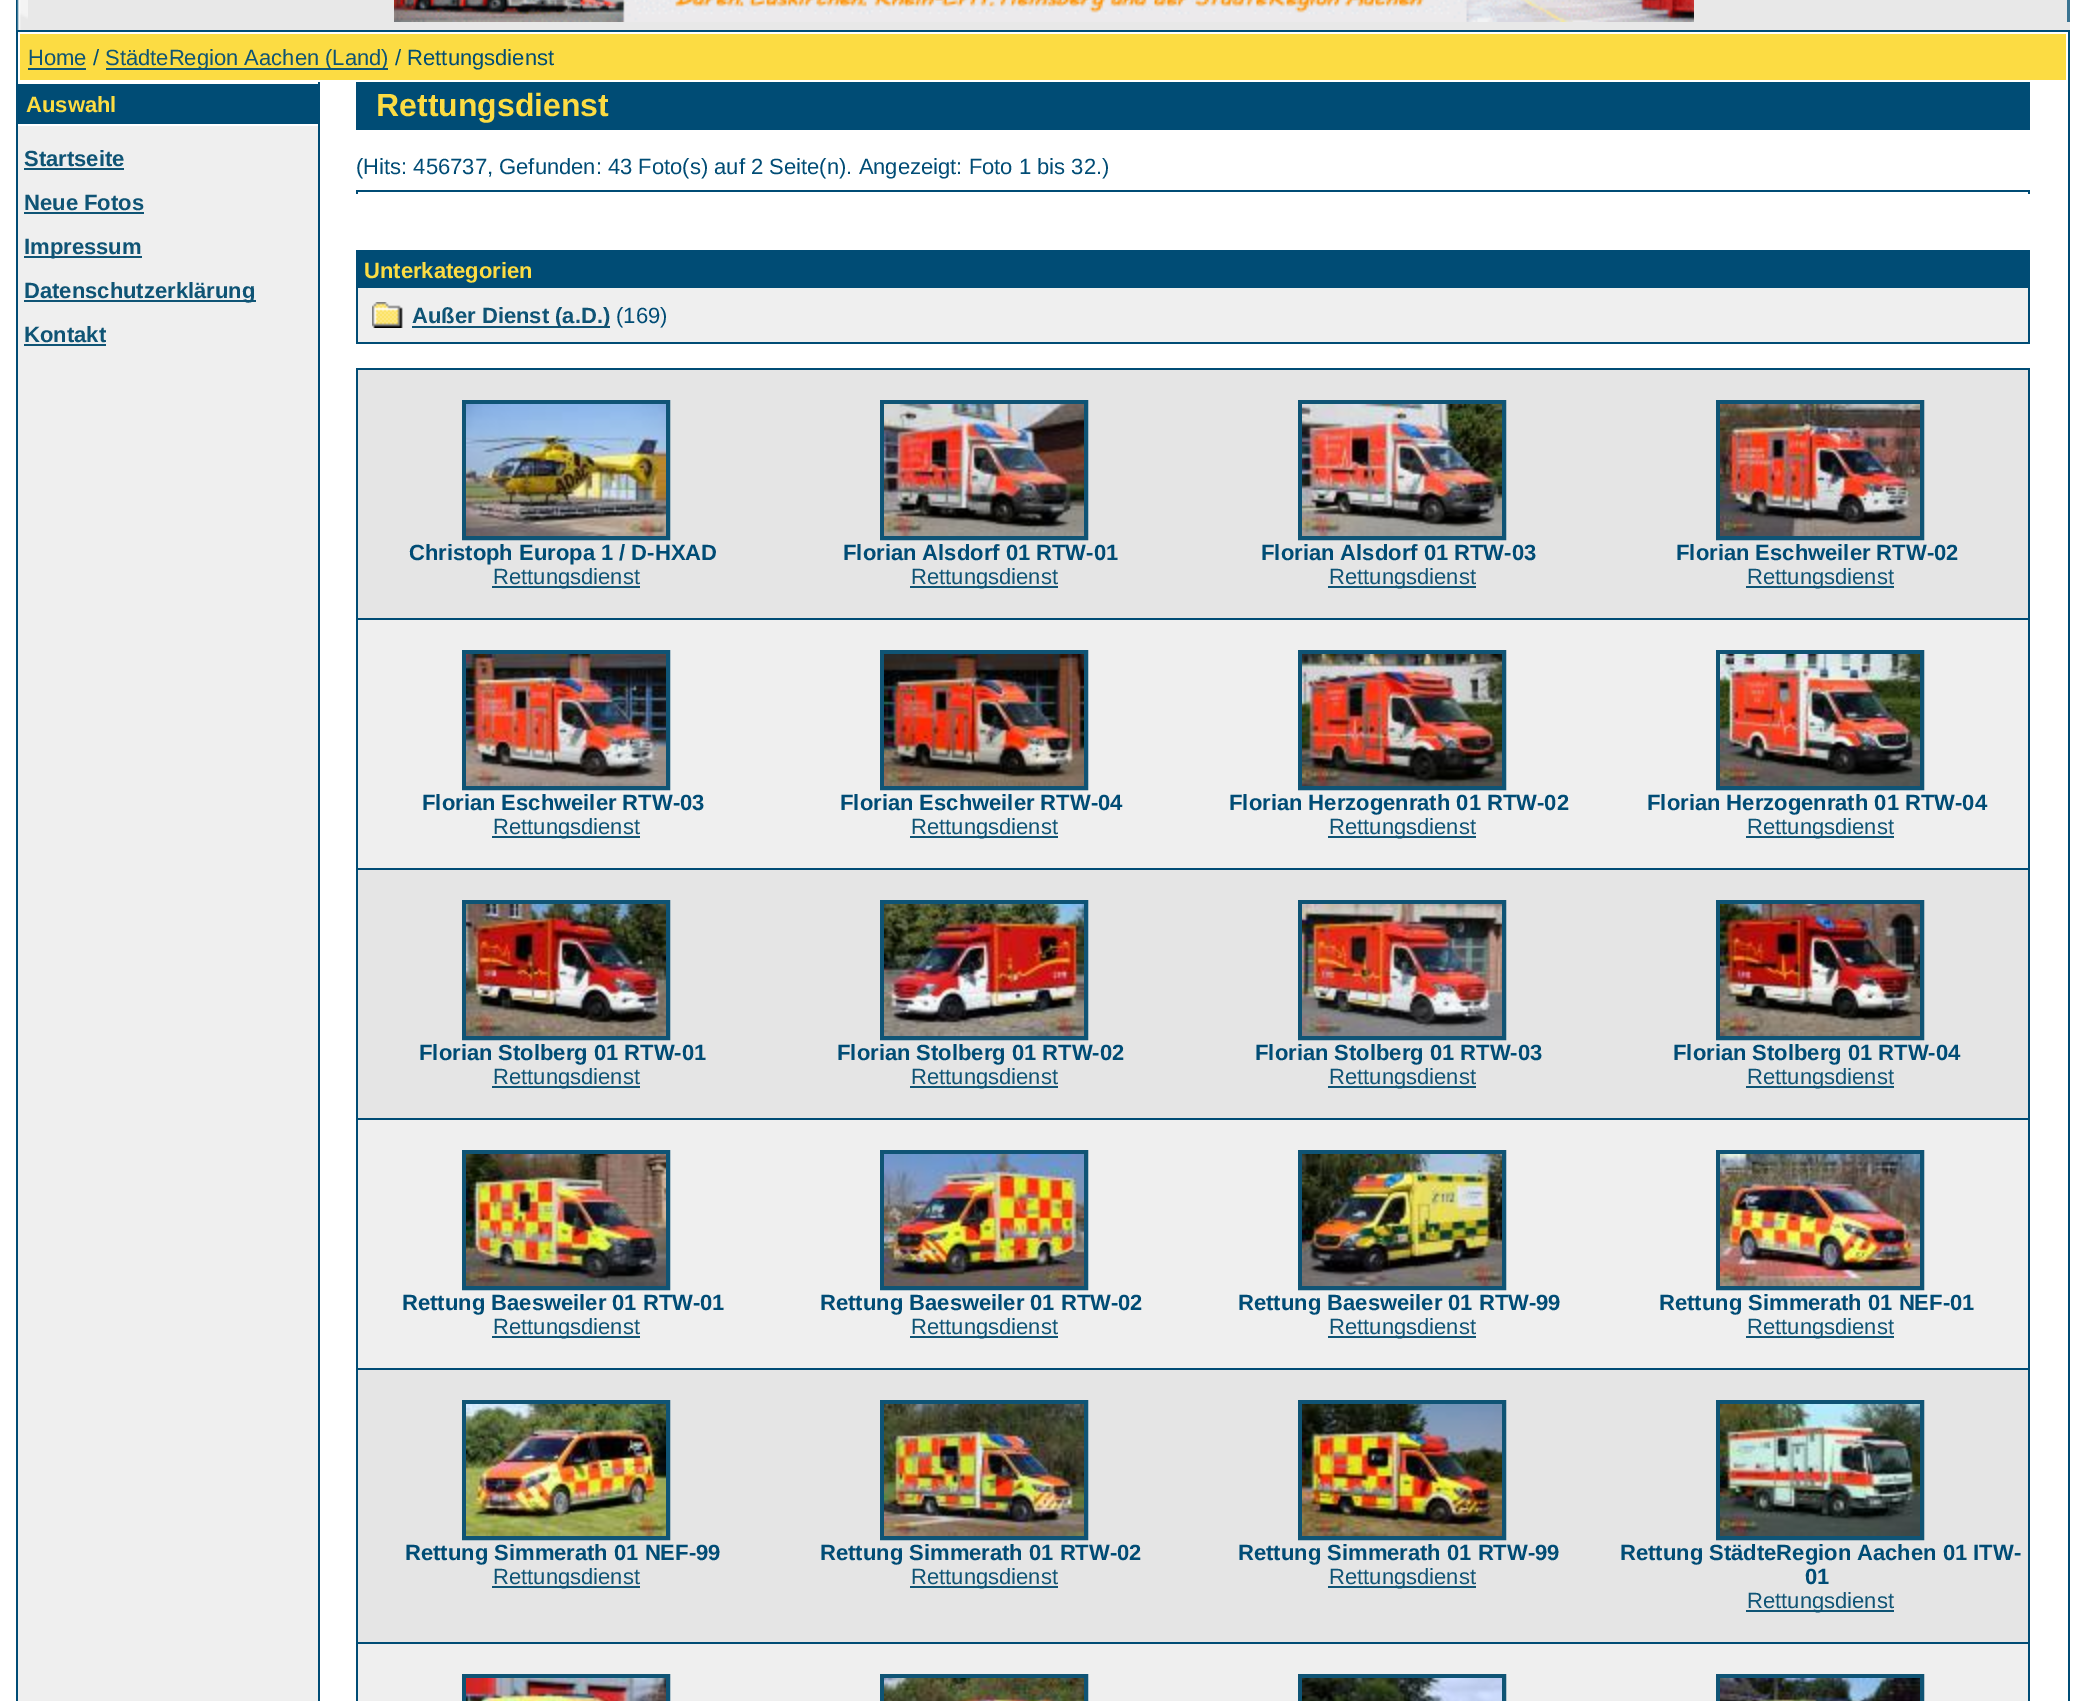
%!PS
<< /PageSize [2085 1701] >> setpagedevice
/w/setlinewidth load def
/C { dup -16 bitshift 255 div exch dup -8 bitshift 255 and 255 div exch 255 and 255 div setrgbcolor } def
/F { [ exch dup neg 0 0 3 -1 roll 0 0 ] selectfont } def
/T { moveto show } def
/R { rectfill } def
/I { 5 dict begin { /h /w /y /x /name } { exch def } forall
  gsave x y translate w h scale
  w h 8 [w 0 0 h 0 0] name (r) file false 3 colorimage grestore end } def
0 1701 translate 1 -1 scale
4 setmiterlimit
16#FFFFFF C
0 0 2085 1701 R
16#E8E8E8 C
28 0 2042 30 R
(1.rgb) 16 0 12 30 I
(2.rgb) 394 0 1300 22 I
16#3A7391 C
2067 0 3 22 R
16#004C75 C
16 30 2054 1671 R
16#FFFFFF C
18 32 2050 1669 R
16#FCDC43 C
20 34 2046 46 R
/LiberationSans-Regular 22 F
16#0F5475 C
(Home) 28 65 T
28 68 58 2 R
16#004C75 C
(/) 93 65 T
16#0F5475 C
106 68 282 2 R
(StädteRegion Aachen \(Land\)) 105 65 T
16#004C75 C
(/ Rettungsdienst) 395 65 T
16#EFEFEF C
18 126 300 1575 R
16#004C75 C
18 84 300 40 R
/LiberationSans-Bold 22 F
16#FCDC43 C
(Auswahl) 26 112 T
16#0F5475 C
(Startseite) 24 166 T
24 168 100 2 R
(Neue Fotos) 24 210 T
24 212 120 2 R
24 256 118 2 R
(Impressum) 24 254 T
24 300 232 2 R
(Datenschutzerklärung) 24 298 T
(Kontakt) 24 342 T
24 344 82 2 R
16#004C75 C
318 82 2 1619 R
356 82 1674 48 R
/LiberationSans-Bold 32 F
16#FCDC43 C
(Rettungsdienst) 376 116 T
/LiberationSans-Regular 22 F
16#004C75 C
(\(Hits: 456737, Gefunden: 43 Foto\(s\) auf 2 Seite\(n\). Angezeigt: Foto 1 bis 32.\)) 356 174 T
356 190 1674 2 R
2028 190 2 4 R
356 190 2 4 R
356 250 1674 94 R
/LiberationSans-Bold 22 F
16#FCDC43 C
(Unterkategorien) 364 278 T
16#EFEFEF C
358 288 1670 54 R
(3.rgb) 372 302 31 26 I
16#0F5475 C
412 326 198 2 R
(Außer Dienst \(a.D.\)) 412 323 T
/LiberationSans-Regular 22 F
16#004C75 C
(\(169\)) 616 323 T
356 368 1674 1333 R
16#E5E5E5 C
358 370 1670 248 R
16#0F5475 C
4 w
464 402 204 136 rectstroke
(4.rgb) 466 404 200 132 I
/LiberationSans-Bold 22 F
16#004C75 C
(Christoph Europa 1 / D-HXAD) 409 560 T
16#0F5475 C
492 586 148 2 R
/LiberationSans-Regular 22 F
(Rettungsdienst) 493 584 T
882 402 204 136 rectstroke
(5.rgb) 884 404 200 132 I
/LiberationSans-Bold 22 F
16#004C75 C
(Florian Alsdorf 01 RTW-01) 843 560 T
16#0F5475 C
910 586 148 2 R
/LiberationSans-Regular 22 F
(Rettungsdienst) 911 584 T
1300 402 204 136 rectstroke
(6.rgb) 1302 404 200 132 I
/LiberationSans-Bold 22 F
16#004C75 C
(Florian Alsdorf 01 RTW-03) 1261 560 T
16#0F5475 C
1328 586 148 2 R
/LiberationSans-Regular 22 F
(Rettungsdienst) 1329 584 T
1718 402 204 136 rectstroke
(7.rgb) 1720 404 200 132 I
/LiberationSans-Bold 22 F
16#004C75 C
(Florian Eschweiler RTW-02) 1676 560 T
16#0F5475 C
1746 586 148 2 R
/LiberationSans-Regular 22 F
(Rettungsdienst) 1747 584 T
16#EFEFEF C
358 620 1670 248 R
16#0F5475 C
464 652 204 136 rectstroke
(8.rgb) 466 654 200 132 I
/LiberationSans-Bold 22 F
16#004C75 C
(Florian Eschweiler RTW-03) 422 810 T
16#0F5475 C
492 836 148 2 R
/LiberationSans-Regular 22 F
(Rettungsdienst) 493 834 T
882 652 204 136 rectstroke
(9.rgb) 884 654 200 132 I
/LiberationSans-Bold 22 F
16#004C75 C
(Florian Eschweiler RTW-04) 840 810 T
16#0F5475 C
910 836 148 2 R
/LiberationSans-Regular 22 F
(Rettungsdienst) 911 834 T
1300 652 204 136 rectstroke
(10.rgb) 1302 654 200 132 I
/LiberationSans-Bold 22 F
16#004C75 C
(Florian Herzogenrath 01 RTW-02) 1229 810 T
16#0F5475 C
1328 836 148 2 R
/LiberationSans-Regular 22 F
(Rettungsdienst) 1329 834 T
1718 652 204 136 rectstroke
(11.rgb) 1720 654 200 132 I
/LiberationSans-Bold 22 F
16#004C75 C
(Florian Herzogenrath 01 RTW-04) 1647 810 T
16#0F5475 C
1746 836 148 2 R
/LiberationSans-Regular 22 F
(Rettungsdienst) 1747 834 T
16#E5E5E5 C
358 870 1670 248 R
16#0F5475 C
464 902 204 136 rectstroke
(12.rgb) 466 904 200 132 I
/LiberationSans-Bold 22 F
16#004C75 C
(Florian Stolberg 01 RTW-01) 419 1060 T
16#0F5475 C
492 1086 148 2 R
/LiberationSans-Regular 22 F
(Rettungsdienst) 493 1084 T
882 902 204 136 rectstroke
(13.rgb) 884 904 200 132 I
/LiberationSans-Bold 22 F
16#004C75 C
(Florian Stolberg 01 RTW-02) 837 1060 T
16#0F5475 C
910 1086 148 2 R
/LiberationSans-Regular 22 F
(Rettungsdienst) 911 1084 T
1300 902 204 136 rectstroke
(14.rgb) 1302 904 200 132 I
/LiberationSans-Bold 22 F
16#004C75 C
(Florian Stolberg 01 RTW-03) 1255 1060 T
16#0F5475 C
1328 1086 148 2 R
/LiberationSans-Regular 22 F
(Rettungsdienst) 1329 1084 T
1718 902 204 136 rectstroke
(15.rgb) 1720 904 200 132 I
/LiberationSans-Bold 22 F
16#004C75 C
(Florian Stolberg 01 RTW-04) 1673 1060 T
16#0F5475 C
1746 1086 148 2 R
/LiberationSans-Regular 22 F
(Rettungsdienst) 1747 1084 T
16#EFEFEF C
358 1120 1670 248 R
16#0F5475 C
464 1152 204 136 rectstroke
(16.rgb) 466 1154 200 132 I
/LiberationSans-Bold 22 F
16#004C75 C
(Rettung Baesweiler 01 RTW-01) 402 1310 T
16#0F5475 C
492 1336 148 2 R
/LiberationSans-Regular 22 F
(Rettungsdienst) 493 1334 T
882 1152 204 136 rectstroke
(17.rgb) 884 1154 200 132 I
/LiberationSans-Bold 22 F
16#004C75 C
(Rettung Baesweiler 01 RTW-02) 820 1310 T
16#0F5475 C
910 1336 148 2 R
/LiberationSans-Regular 22 F
(Rettungsdienst) 911 1334 T
1300 1152 204 136 rectstroke
(18.rgb) 1302 1154 200 132 I
/LiberationSans-Bold 22 F
16#004C75 C
(Rettung Baesweiler 01 RTW-99) 1238 1310 T
16#0F5475 C
1328 1336 148 2 R
/LiberationSans-Regular 22 F
(Rettungsdienst) 1329 1334 T
1718 1152 204 136 rectstroke
(19.rgb) 1720 1154 200 132 I
/LiberationSans-Bold 22 F
16#004C75 C
(Rettung Simmerath 01 NEF-01) 1659 1310 T
16#0F5475 C
1746 1336 148 2 R
/LiberationSans-Regular 22 F
(Rettungsdienst) 1747 1334 T
16#E5E5E5 C
358 1370 1670 272 R
16#0F5475 C
464 1402 204 136 rectstroke
(20.rgb) 466 1404 200 132 I
/LiberationSans-Bold 22 F
16#004C75 C
(Rettung Simmerath 01 NEF-99) 405 1560 T
16#0F5475 C
492 1586 148 2 R
/LiberationSans-Regular 22 F
(Rettungsdienst) 493 1584 T
882 1402 204 136 rectstroke
(21.rgb) 884 1404 200 132 I
/LiberationSans-Bold 22 F
16#004C75 C
(Rettung Simmerath 01 RTW-02) 820 1560 T
16#0F5475 C
910 1586 148 2 R
/LiberationSans-Regular 22 F
(Rettungsdienst) 911 1584 T
1300 1402 204 136 rectstroke
(22.rgb) 1302 1404 200 132 I
/LiberationSans-Bold 22 F
16#004C75 C
(Rettung Simmerath 01 RTW-99) 1238 1560 T
16#0F5475 C
1328 1586 148 2 R
/LiberationSans-Regular 22 F
(Rettungsdienst) 1329 1584 T
1718 1402 204 136 rectstroke
(23.rgb) 1720 1404 200 132 I
/LiberationSans-Bold 22 F
16#004C75 C
(Rettung StädteRegion Aachen 01 ITW-) 1620 1560 T
(01) 1805 1584 T
16#0F5475 C
1746 1610 148 2 R
/LiberationSans-Regular 22 F
(Rettungsdienst) 1747 1608 T
16#EFEFEF C
358 1644 1670 57 R
16#0F5475 C
464 1676 204 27 rectstroke
(24.rgb) 466 1678 200 23 I
882 1676 204 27 rectstroke
(25.rgb) 884 1678 200 23 I
1300 1676 204 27 rectstroke
(26.rgb) 1302 1678 200 23 I
1718 1676 204 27 rectstroke
(27.rgb) 1720 1678 200 23 I
showpage
